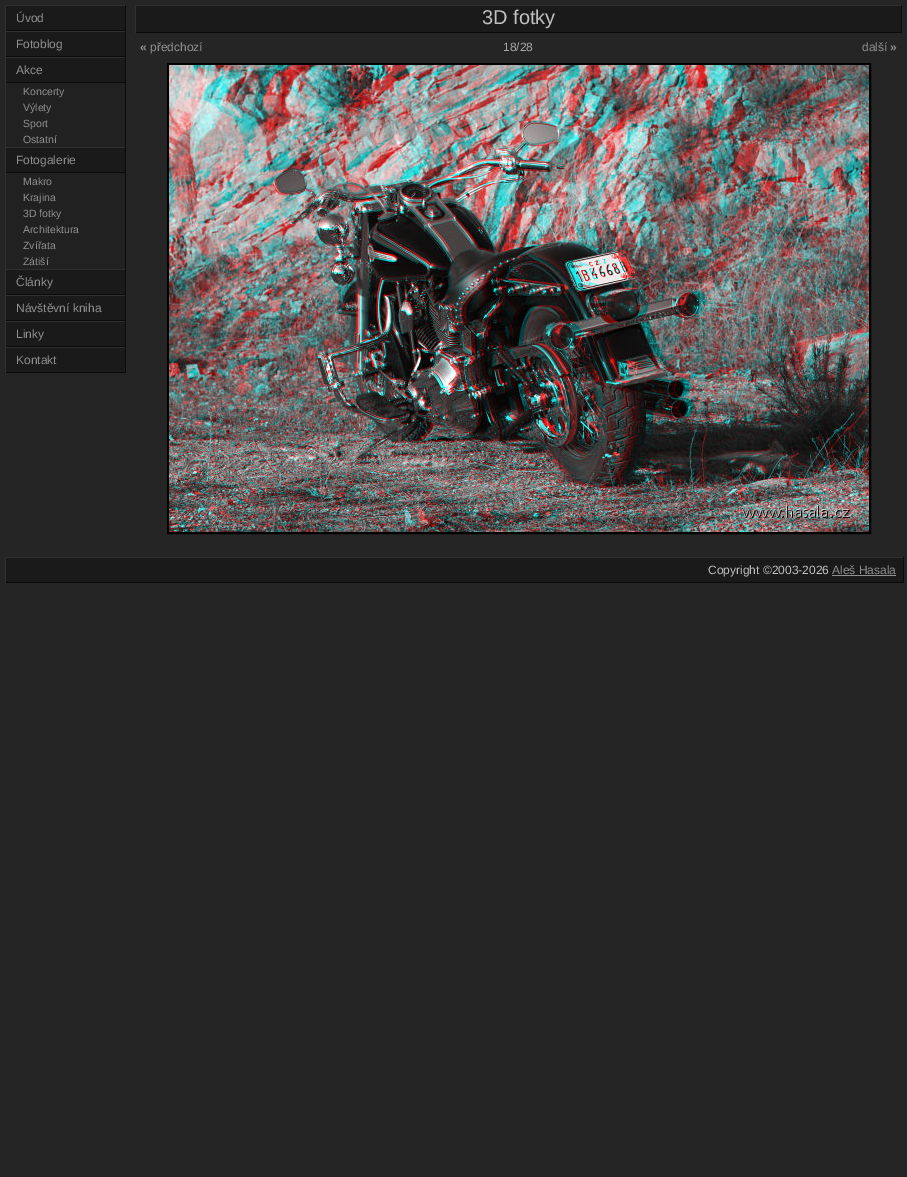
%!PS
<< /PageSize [907 1177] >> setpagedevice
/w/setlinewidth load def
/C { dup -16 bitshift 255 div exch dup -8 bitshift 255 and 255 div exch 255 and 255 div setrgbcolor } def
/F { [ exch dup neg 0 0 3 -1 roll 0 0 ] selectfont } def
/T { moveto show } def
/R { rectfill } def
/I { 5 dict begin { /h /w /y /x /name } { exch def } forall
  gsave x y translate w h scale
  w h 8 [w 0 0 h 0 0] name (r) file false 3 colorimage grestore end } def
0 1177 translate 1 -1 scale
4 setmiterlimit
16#252525 C
0 0 907 1177 R
16#1A1A1A C
6 6 119 24 R
16#303030 C
5 5 121 1 R
16#0A0A0A C
125 5 1 26 R
5 30 121 1 R
16#303030 C
5 5 1 26 R
/LiberationSans-Regular 12 F
16#909090 C
(Úvod) 16 22 T
16#1A1A1A C
6 32 119 24 R
16#303030 C
5 31 121 1 R
16#0A0A0A C
125 31 1 26 R
5 56 121 1 R
16#303030 C
5 31 1 26 R
16#909090 C
(Fotoblog) 16 48 T
16#1A1A1A C
6 58 119 24 R
16#303030 C
5 57 121 1 R
16#0A0A0A C
125 57 1 90 R
5 82 121 1 R
16#303030 C
5 57 1 90 R
16#909090 C
(Akce) 16 74 T
16#212121 C
6 83 119 64 R
/LiberationSans-Regular 10.5 F
16#909090 C
(Koncerty) 23 95 T
(Výlety) 23 111 T
(Sport) 23 127 T
(Ostatní) 23 143 T
16#1A1A1A C
6 148 119 24 R
16#303030 C
5 147 121 1 R
16#0A0A0A C
125 147 1 122 R
5 172 121 1 R
16#303030 C
5 147 1 122 R
/LiberationSans-Regular 12 F
16#909090 C
(Fotogalerie) 16 164 T
16#212121 C
6 173 119 96 R
/LiberationSans-Regular 10.5 F
16#909090 C
(Makro) 23 185 T
(Krajina) 23 201 T
(3D fotky) 23 217 T
(Architektura) 23 233 T
(Zvířata) 23 249 T
(Zátiší) 23 265 T
16#1A1A1A C
6 270 119 24 R
16#303030 C
5 269 121 1 R
16#0A0A0A C
125 269 1 26 R
5 294 121 1 R
16#303030 C
5 269 1 26 R
/LiberationSans-Regular 12 F
16#909090 C
(Články) 16 286 T
16#1A1A1A C
6 296 119 24 R
16#303030 C
5 295 121 1 R
16#0A0A0A C
125 295 1 26 R
5 320 121 1 R
16#303030 C
5 295 1 26 R
16#909090 C
(Návštěvní kniha) 16 312 T
16#1A1A1A C
6 322 119 24 R
16#303030 C
5 321 121 1 R
16#0A0A0A C
125 321 1 26 R
5 346 121 1 R
16#303030 C
5 321 1 26 R
16#909090 C
(Linky) 16 338 T
16#1A1A1A C
6 348 119 24 R
16#303030 C
5 347 121 1 R
16#0A0A0A C
125 347 1 26 R
5 372 121 1 R
16#303030 C
5 347 1 26 R
16#909090 C
(Kontakt) 16 364 T
16#1A1A1A C
136 6 765 26 R
16#303030 C
135 5 767 1 R
16#0A0A0A C
901 5 1 28 R
135 32 767 1 R
16#303030 C
135 5 1 28 R
/LiberationSans-Regular 20 F
16#C0C0C0 C
(3D fotky) 482 24 T
/LiberationSans-Bold 12 F
16#909090 C
(«) 140 51 T
/LiberationSans-Regular 12 F
(předchozí) 150 51 T
16#A8A8A8 C
(18/28) 503 51 T
16#909090 C
(další) 862 51 T
/LiberationSans-Bold 12 F
(») 890 51 T
16#000000 C
2 w
168 64 702 469 rectstroke
(1.rgb) 169 65 700 467 I
16#1A1A1A C
6 558 897 24 R
16#303030 C
5 557 899 1 R
16#0A0A0A C
903 557 1 26 R
5 582 899 1 R
16#303030 C
5 557 1 26 R
/LiberationSans-Regular 12 F
16#C0C0C0 C
(Copyright ©2003-2026) 708 574 T
16#909090 C
(Aleš Hasala) 832 574 T
832 575 64 1 R
showpage
